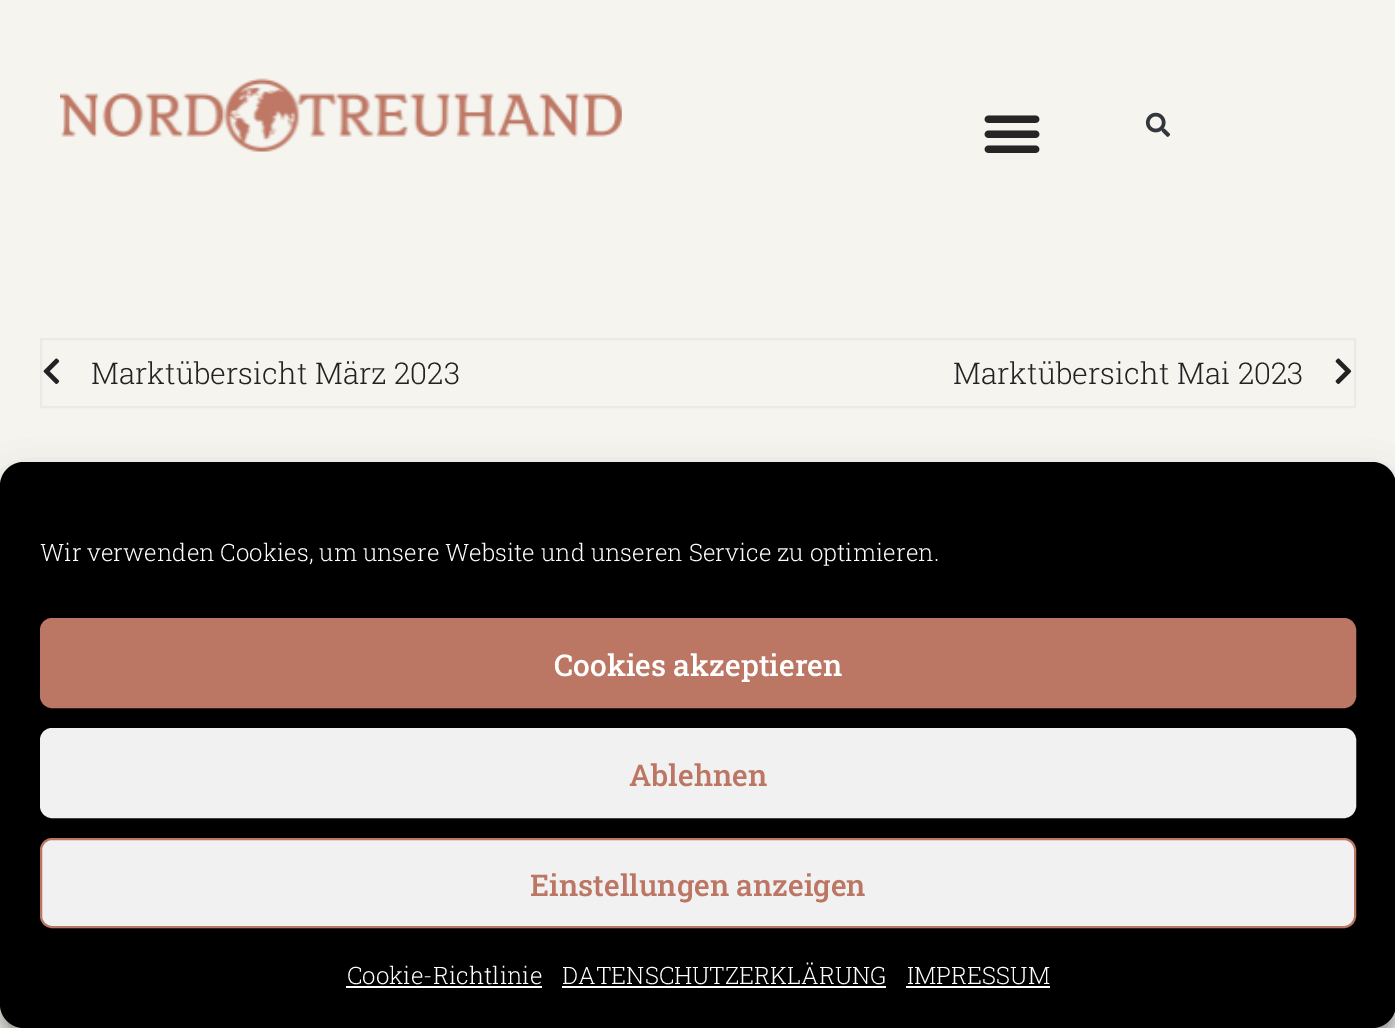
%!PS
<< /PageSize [1395 1028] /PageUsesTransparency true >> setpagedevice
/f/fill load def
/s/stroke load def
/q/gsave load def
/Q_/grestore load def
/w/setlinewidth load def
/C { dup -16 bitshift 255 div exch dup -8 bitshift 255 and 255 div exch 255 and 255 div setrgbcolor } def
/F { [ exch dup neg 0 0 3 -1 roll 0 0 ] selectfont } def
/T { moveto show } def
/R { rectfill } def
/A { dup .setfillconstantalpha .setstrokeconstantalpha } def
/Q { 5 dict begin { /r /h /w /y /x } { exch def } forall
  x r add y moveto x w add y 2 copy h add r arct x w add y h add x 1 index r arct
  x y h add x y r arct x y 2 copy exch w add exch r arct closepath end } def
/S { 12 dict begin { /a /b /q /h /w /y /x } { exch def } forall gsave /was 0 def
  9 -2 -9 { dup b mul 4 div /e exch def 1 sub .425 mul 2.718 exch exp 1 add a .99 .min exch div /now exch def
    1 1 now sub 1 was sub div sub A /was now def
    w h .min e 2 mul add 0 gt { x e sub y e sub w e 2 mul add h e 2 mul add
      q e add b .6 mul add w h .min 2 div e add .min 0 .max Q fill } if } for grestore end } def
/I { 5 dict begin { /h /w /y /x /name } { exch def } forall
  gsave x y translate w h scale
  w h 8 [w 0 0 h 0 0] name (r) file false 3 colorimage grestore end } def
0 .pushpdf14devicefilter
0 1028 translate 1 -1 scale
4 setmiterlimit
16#F5F4EF C
0 0 1395 1028 R
(1.rgb) 60 78 562 74 I
(2.rgb) 984 115 56 38 I
(3.rgb) 1145 112 26 25 I
16#EAEAEA C
2 w
41 339 1314 68 rectstroke
(4.rgb) 43 358 17 26 I
/RobotoSlab-Light 30 F
16#222222 C
(Marktübersicht März 2023) 91 384 T
(Marktübersicht Mai 2023) 953 384 T
(5.rgb) 1335 358 17 26 I
16#000000 C
0 474 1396 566 24 6 .23 S
0 482 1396 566 24 20 .19 S
0 462 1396 566 24 Q f
/RobotoSlab-Light 24 F
16#FFFFFF C
(Wir verwenden Cookies, um unsere Website und unseren Service zu optimieren.) 40 561 T
16#BC7664 C
41 619 1314 88 11 Q q f Q_
s
/RobotoSlab-Medium 30 F
16#FFFFFF C
(Cookies akzeptieren) 554 676 T
16#F1F1F1 C
41 729 1314 88 11 Q q f Q_
s
16#BC7664 C
(Ablehnen) 629 786 T
16#F1F1F1 C
41 839 1314 88 11 Q q f Q_
16#BC7664 C
s
(Einstellungen anzeigen) 530 896 T
/RobotoSlab-Light 24 F
16#FFFFFF C
(Cookie-Richtlinie) 347 984 T
346 986 196 2 R
(DATENSCHUTZERKLÄRUNG) 562 984 T
562 986 324 2 R
(IMPRESSUM) 907 984 T
906 986 144 2 R
.poppdf14devicefilter showpage
